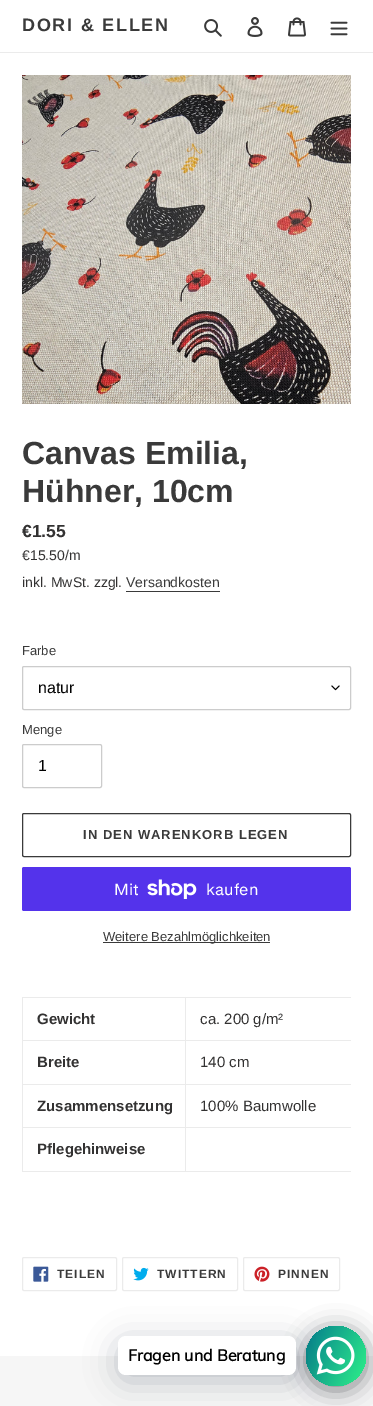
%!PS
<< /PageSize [373 1406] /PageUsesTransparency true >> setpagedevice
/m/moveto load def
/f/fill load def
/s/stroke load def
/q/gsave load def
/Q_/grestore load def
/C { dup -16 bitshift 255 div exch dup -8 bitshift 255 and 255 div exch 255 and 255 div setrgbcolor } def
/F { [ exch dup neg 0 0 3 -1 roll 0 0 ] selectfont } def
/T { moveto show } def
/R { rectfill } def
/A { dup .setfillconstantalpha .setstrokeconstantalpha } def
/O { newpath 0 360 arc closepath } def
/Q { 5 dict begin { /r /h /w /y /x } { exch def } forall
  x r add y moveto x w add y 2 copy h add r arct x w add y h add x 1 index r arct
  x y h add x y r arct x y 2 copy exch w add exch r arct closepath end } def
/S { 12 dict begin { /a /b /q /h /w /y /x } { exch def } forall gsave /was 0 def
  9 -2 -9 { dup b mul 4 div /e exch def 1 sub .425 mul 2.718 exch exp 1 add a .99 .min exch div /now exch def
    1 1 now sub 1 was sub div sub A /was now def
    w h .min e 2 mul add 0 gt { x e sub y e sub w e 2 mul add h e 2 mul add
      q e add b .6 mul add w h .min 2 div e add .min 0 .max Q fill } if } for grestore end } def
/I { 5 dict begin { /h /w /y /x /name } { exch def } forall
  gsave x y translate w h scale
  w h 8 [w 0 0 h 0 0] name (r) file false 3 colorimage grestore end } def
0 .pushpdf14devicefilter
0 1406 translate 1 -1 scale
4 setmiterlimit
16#FFFFFF C
0 0 373 1406 R
16#EBEBEB C
0 52 373 1 R
/LiberationSans-Bold 18 F
16#3A3A3A C
22 31 m 1.75 0 (DORI & ELLEN) ashow
(1.rgb) 204 19 18 18 I
(2.rgb) 247 17 16 20 I
(3.rgb) 288 17 18 20 I
(4.rgb) 330 21 18 15 I
(5.rgb) 22 75 329 329 I
/LiberationSans-Bold 32 F
(Canvas Emilia,) 22 464 T
(Hühner, 10cm) 22 502 T
/LiberationSans-Bold 17.5 F
16#333232 C
(€1.55) 22 537 T
/LiberationSans-Regular 14 F
(€15.50/m) 22 560 T
(inkl. MwSt. zzgl.) 22 587 T
16#3A3A3A C
(Versandkosten) 126 587 T
126 591 94 1 R
/LiberationSans-Regular 13 F
(Farbe) 22 655 T
(6.rgb) 331 685 9 6 I
16#CCCCCC C
22.5 666.5 328 43 1.5 Q s
/LiberationSans-Regular 16 F
16#000000 C
(natur) 38 693 T
/LiberationSans-Regular 13 F
16#3A3A3A C
(Menge) 22 734 T
16#CCCCCC C
22.5 744.5 79 43 1.5 Q s
/LiberationSans-Regular 16 F
16#000000 C
(1) 38 771 T
16#3A3A3A C
22.5 813.5 328 43 1.5 Q s
/LiberationSans-Bold 13 F
83 839 m 1 0 (IN DEN WARENKORB LEGEN) ashow
16#5433EB C
22 867 329 44 2 Q f
/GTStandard-Regular 16 F
16#FFFFFF C
(Mit) 114 895 T
(7.rgb) 147 879 50 20 I
(kaufen) 206 895 T
16#3A3A3A C
103 942 167 1 R
/LiberationSans-Regular 13 F
(Weitere Bezahlmöglichkeiten) 103 941 T
16#EBEBEB C
185 997 166 1 R
185 1040 166 1 R
185 1084 166 1 R
185 1127 166 1 R
185 1171 166 1 R
185 1127 1 45 R
22 1127 164 1 R
185 1084 1 44 R
22 1084 164 1 R
185 1040 1 45 R
22 1040 164 1 R
185 997 1 44 R
22 997 164 1 R
22 1171 164 1 R
22 1127 1 45 R
22 1084 1 44 R
22 1040 1 45 R
22 997 1 44 R
/LiberationSans-Bold 15 F
16#333232 C
(Gewicht) 37 1024 T
/LiberationSans-Regular 15 F
(ca. 200 g/m²) 200 1024 T
/LiberationSans-Bold 15 F
(Breite) 37 1067 T
/LiberationSans-Regular 15 F
(140 cm) 200 1067 T
/LiberationSans-Bold 15 F
(Zusammensetzung) 37 1111 T
/LiberationSans-Regular 15 F
(100% Baumwolle) 200 1111 T
/LiberationSans-Bold 15 F
(Pflegehinweise) 37 1154 T
16#EBEBEB C
22.5 1257.5 94 33 1.5 Q s
(8.rgb) 33 1266 16 16 I
/LiberationSans-Bold 12 F
16#3A3A3A C
57 1278 m 1 0 (TEILEN) ashow
16#EBEBEB C
122.5 1257.5 115 33 1.5 Q s
(9.rgb) 133 1267 16 14 I
16#3A3A3A C
157 1278 m 1 0 (TWITTERN) ashow
16#EBEBEB C
243.5 1257.5 96 33 1.5 Q s
(10.rgb) 254 1266 16 16 I
16#3A3A3A C
278 1278 m 1 0 (PINNEN) ashow
16#F6F6F6 C
0 1356 373 50 R
16#020610 C
306 1330 60 60 30 12 .5 S
q 336 1356 30 O clip newpath
<< /ShadingType 2 /ColorSpace /DeviceRGB /Coords [300 1339 372 1373] /Extend [true true] /Function << /FunctionType 2 /Domain [0 1] /C0 [.016 .486 .553] /C1 [.184 .949 .537] /N 1 >> >> shfill Q_
16#00122E C
118 1342 178 39 8 16 .24 S
16#FFFFFF C
118 1336 178 39 8 Q f
/Muli-Bold 16 F
16#000000 C
(Fragen und Beratung) 128 1361 T
(11.rgb) 316 1336 39 39 I
.poppdf14devicefilter showpage
